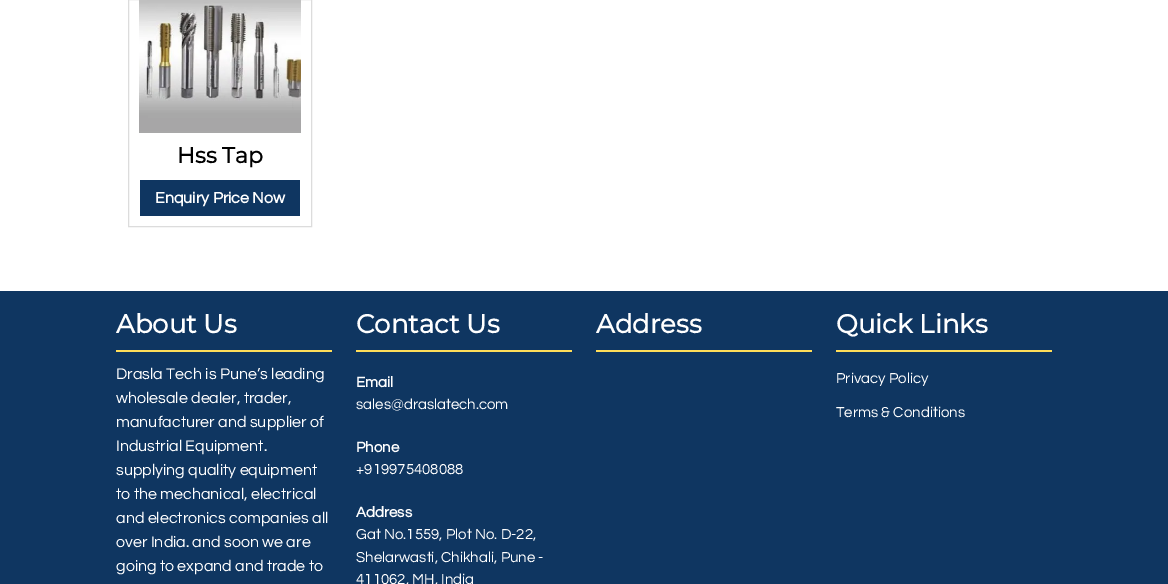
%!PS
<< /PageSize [1168 584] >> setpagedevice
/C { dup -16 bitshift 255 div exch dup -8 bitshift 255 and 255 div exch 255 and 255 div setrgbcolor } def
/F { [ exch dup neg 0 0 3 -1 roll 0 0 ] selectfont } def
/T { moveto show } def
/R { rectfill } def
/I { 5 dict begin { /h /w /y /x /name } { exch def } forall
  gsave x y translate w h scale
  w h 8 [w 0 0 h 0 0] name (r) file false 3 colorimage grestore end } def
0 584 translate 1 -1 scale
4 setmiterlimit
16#FFFFFF C
0 0 1168 584 R
16#DCDCDC C
128.5 -.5 183 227 rectstroke
(1.rgb) 139 0 162 133 I
/Montserrat-Bold 22 F
16#000000 C
(Hss Tap) 177 163 T
16#0F3661 C
140 180 160 36 R
/Questrial-Bold 16 F
16#FFFFFF C
(Enquiry Price Now) 155 203 T
16#0F3661 C
0 291 1168 293 R
16#FFDD59 C
116 350 216 2 R
/Montserrat-Bold 26 F
16#FFFFFF C
(About Us) 116 333 T
/Questrial-Regular 16 F
(Drasla Tech is Pune’s leading) 116 379 T
(wholesale dealer, trader,) 116 403 T
(manufacturer and supplier of) 116 427 T
(Industrial Equipment.) 116 451 T
(supplying quality equipment) 116 475 T
(to the mechanical, electrical) 116 499 T
(and electronics companies all) 116 523 T
(over India. and soon we are) 116 547 T
(going to expand and trade to) 116 571 T
16#FFDD59 C
356 350 216 2 R
/Montserrat-Bold 26 F
16#FFFFFF C
(Contact Us) 356 333 T
/Questrial-Bold 15 F
(Email) 356 387 T
/Questrial-Regular 15 F
(sales@draslatech.com) 356 409 T
/Questrial-Bold 15 F
(Phone) 356 452 T
/Questrial-Regular 15 F
(+919975408088) 356 474 T
/Questrial-Bold 15 F
(Address) 356 517 T
/Questrial-Regular 15 F
(Gat No.1559, Plot No. D-22,) 356 539 T
(Shelarwasti, Chikhali, Pune -) 356 562 T
(411062, MH, India) 356 584 T
16#FFDD59 C
596 350 216 2 R
/Montserrat-Bold 26 F
16#FFFFFF C
(Address) 596 333 T
16#FFDD59 C
836 350 216 2 R
16#FFFFFF C
(Quick Links) 836 333 T
/Questrial-Regular 15 F
(Privacy Policy) 836 383 T
(Terms & Conditions) 836 417 T
showpage
